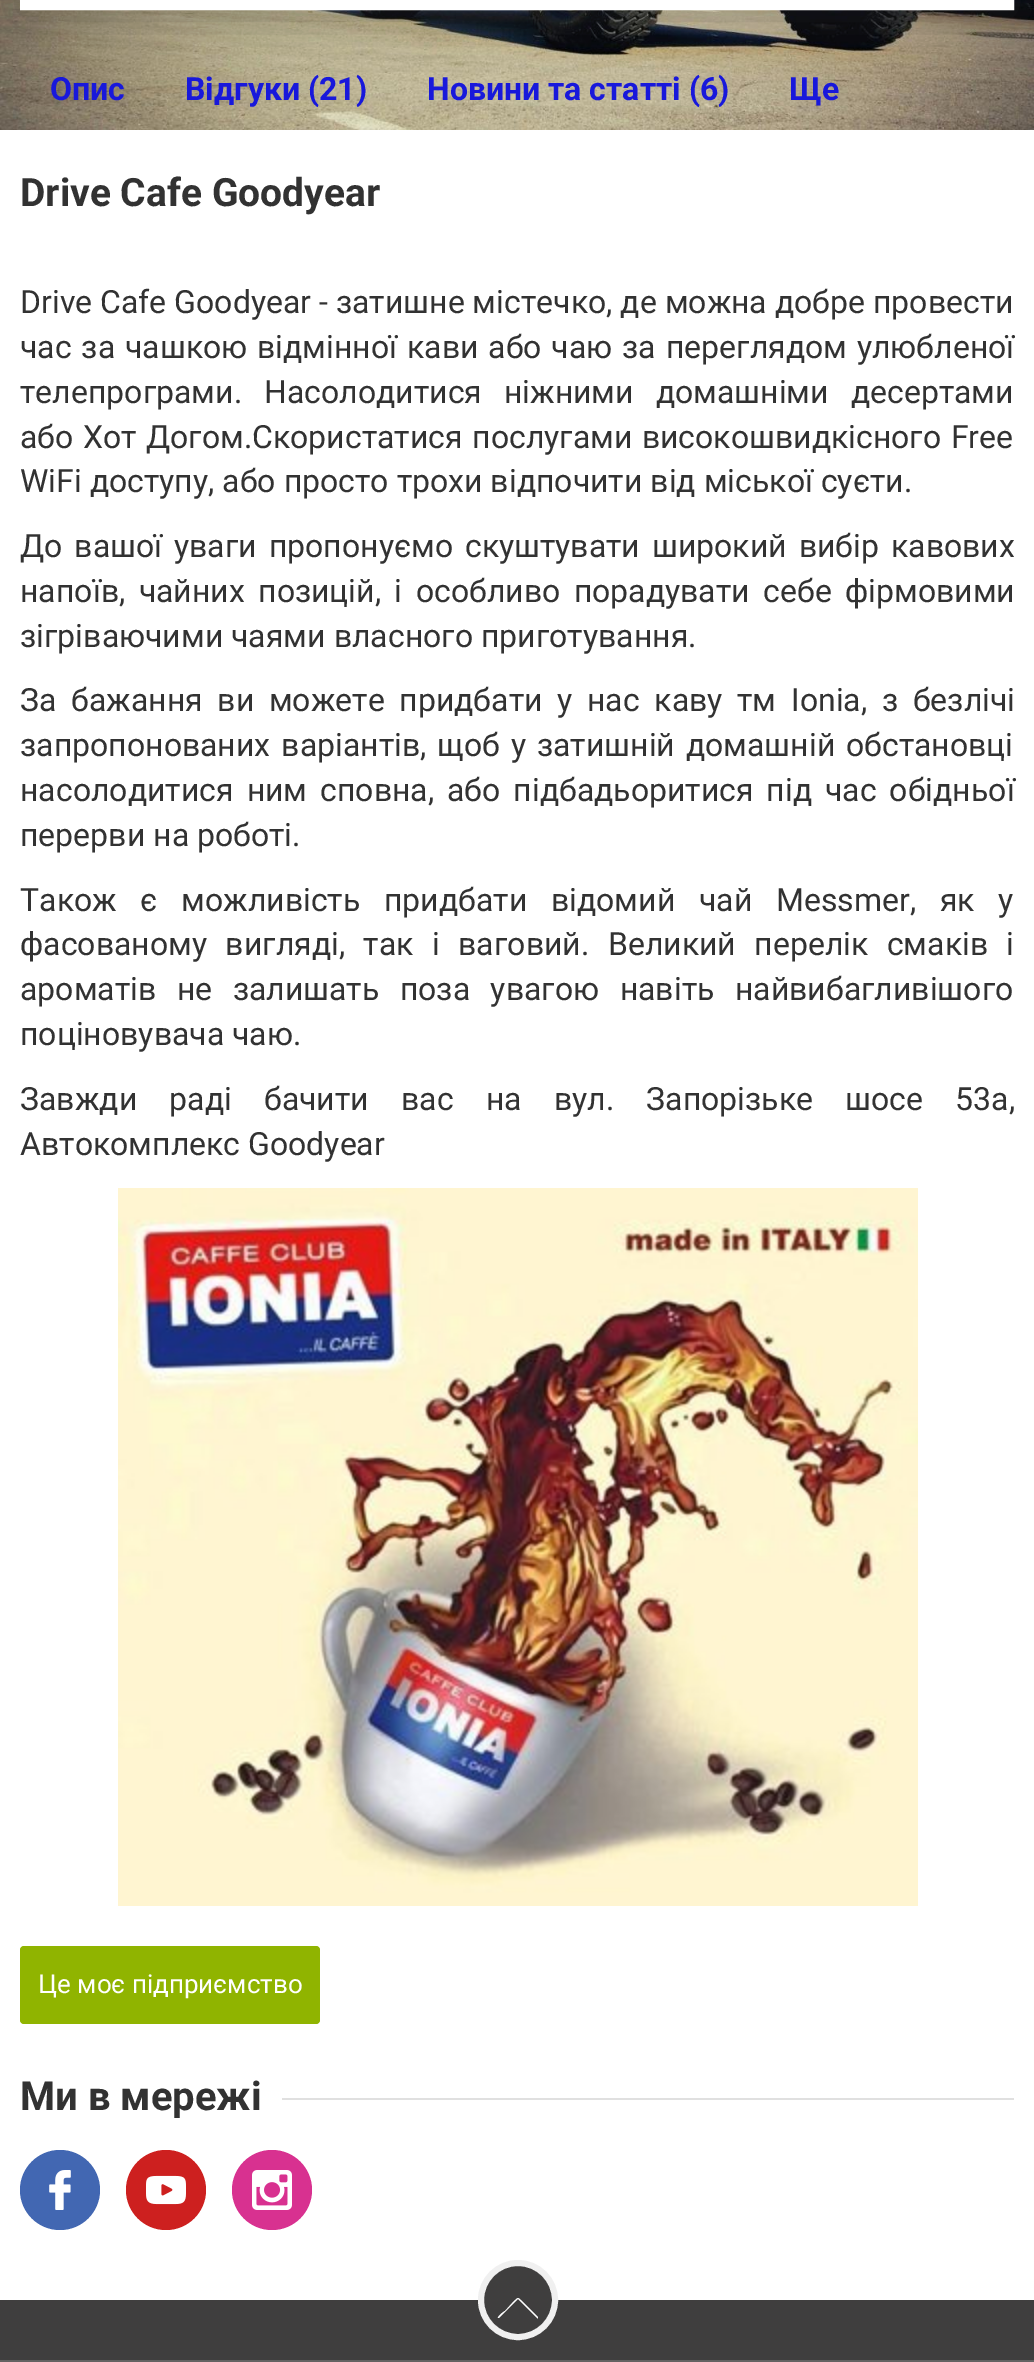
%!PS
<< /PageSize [1034 2362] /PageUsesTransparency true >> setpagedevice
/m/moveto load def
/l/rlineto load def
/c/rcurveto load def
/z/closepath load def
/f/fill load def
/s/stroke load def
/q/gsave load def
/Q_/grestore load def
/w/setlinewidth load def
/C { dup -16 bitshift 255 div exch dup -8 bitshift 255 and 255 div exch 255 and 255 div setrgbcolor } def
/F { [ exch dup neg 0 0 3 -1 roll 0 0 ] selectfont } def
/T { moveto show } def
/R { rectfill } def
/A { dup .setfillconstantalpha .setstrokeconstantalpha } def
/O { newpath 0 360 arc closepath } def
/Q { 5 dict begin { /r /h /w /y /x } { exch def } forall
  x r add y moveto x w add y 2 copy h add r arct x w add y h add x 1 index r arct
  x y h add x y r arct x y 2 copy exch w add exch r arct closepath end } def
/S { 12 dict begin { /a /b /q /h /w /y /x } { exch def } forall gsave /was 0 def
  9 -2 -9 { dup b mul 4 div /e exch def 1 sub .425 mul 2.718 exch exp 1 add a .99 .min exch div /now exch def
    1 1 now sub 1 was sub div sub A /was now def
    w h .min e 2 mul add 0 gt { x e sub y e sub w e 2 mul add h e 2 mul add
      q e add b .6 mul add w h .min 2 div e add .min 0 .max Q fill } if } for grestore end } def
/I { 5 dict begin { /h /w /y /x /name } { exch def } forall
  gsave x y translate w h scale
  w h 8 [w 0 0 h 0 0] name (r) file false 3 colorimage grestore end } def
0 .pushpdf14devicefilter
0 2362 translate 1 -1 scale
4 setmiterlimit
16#FFFFFF C
0 0 1034 2362 R
(1.rgb) 0 0 1034 130 I
16#323232 C
20 -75 994 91 0 25 .4 S
16#FFFFFF C
16 w
28 -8 978 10 rectstroke
/Roboto-Bold 32 F
16#1818DB C
(Опис) 50 100 T
(Відгуки \(21\)) 185 100 T
(Новини та статті \(6\)) 427 100 T
(Ще) 789 100 T
/Roboto-Bold 39 F
16#323232 C
(Drive Cafe Goodyear) 20 206 T
/Roboto-Regular 32 F
(Drive Cafe Goodyear - затишне містечко, де можна добре провести) 20 313 T
20 358 m 1.9 0 32 (час за чашкою відмінної кави або чаю за переглядом улюбленої) widthshow
20 403 m 14 0 32 (телепрограми. Насолодитися ніжними домашніми десертами) widthshow
20 448 m 1.5 0 32 (або Хот Догом.Скористатися послугами високошвидкісного Free) widthshow
(WiFi доступу, або просто трохи відпочити від міської суєти.) 20 492 T
20 557 m 4 0 32 (До вашої уваги пропонуємо скуштувати широкий вибір кавових) widthshow
20 602 m 5.5 0 32 (напоїв, чайних позицій, і особливо порадувати себе фірмовими) widthshow
(зігріваючими чаями власного приготування.) 20 647 T
20 711 m 6.75 0 32 (За бажання ви можете придбати у нас каву тм Ionia, з безлічі) widthshow
20 756 m 3 0 32 (запропонованих варіантів, щоб у затишній домашній обстановці) widthshow
20 801 m 5 0 32 (насолодитися ним сповна, або підбадьоритися під час обідньої) widthshow
(перерви на роботі.) 20 846 T
20 911 m 15.75 0 32 (Також є можливість придбати відомий чай Messmer, як у) widthshow
20 955 m 10.5 0 32 (фасованому вигляді, так і ваговий. Великий перелік смаків і) widthshow
20 1000 m 12.5 0 32 (ароматів не залишать поза увагою навіть найвибагливішого) widthshow
(поціновувача чаю.) 20 1045 T
20 1110 m 24.25 0 32 (Завжди раді бачити вас на вул. Запорізьке шосе 53а,) widthshow
(Автокомплекс Goodyear) 20 1155 T
(2.rgb) 118 1188 800 718 I
16#90B400 C
20 1946 300 78 4 Q f
/Roboto-Regular 26 F
16#FFFFFF C
(Це моє підприємство) 38 1993 T
/Roboto-Bold 40 F
16#323232 C
(Ми в мережі) 20 2110 T
16#E0E0E0 C
282 2098 732 2 R
16#4267B2 C
60 2190 40 O f
(3.rgb) 49 2170 22 40 I
16#CD201F C
166 2190 40 O f
(4.rgb) 146 2175 40 30 I
16#D83190 C
272 2190 40 O f
(5.rgb) 252 2170 40 40 I
16#3F3E3E C
0 2300 1034 60 R
518 2300 37 O q f Q_
16#F0F0F0 C
6 w
s
16#FFFFFF C
538 2317 m -16 -16 l -5 -4 -3 -4 -8 0 c -9 10 l -1 0 -8 6 -7 7 c 1 0 l 19 -19 l 19 19 l 1 1 1 0 1 -1 c z f
16#636262 C
0 2360 1034 2 R
.poppdf14devicefilter showpage
